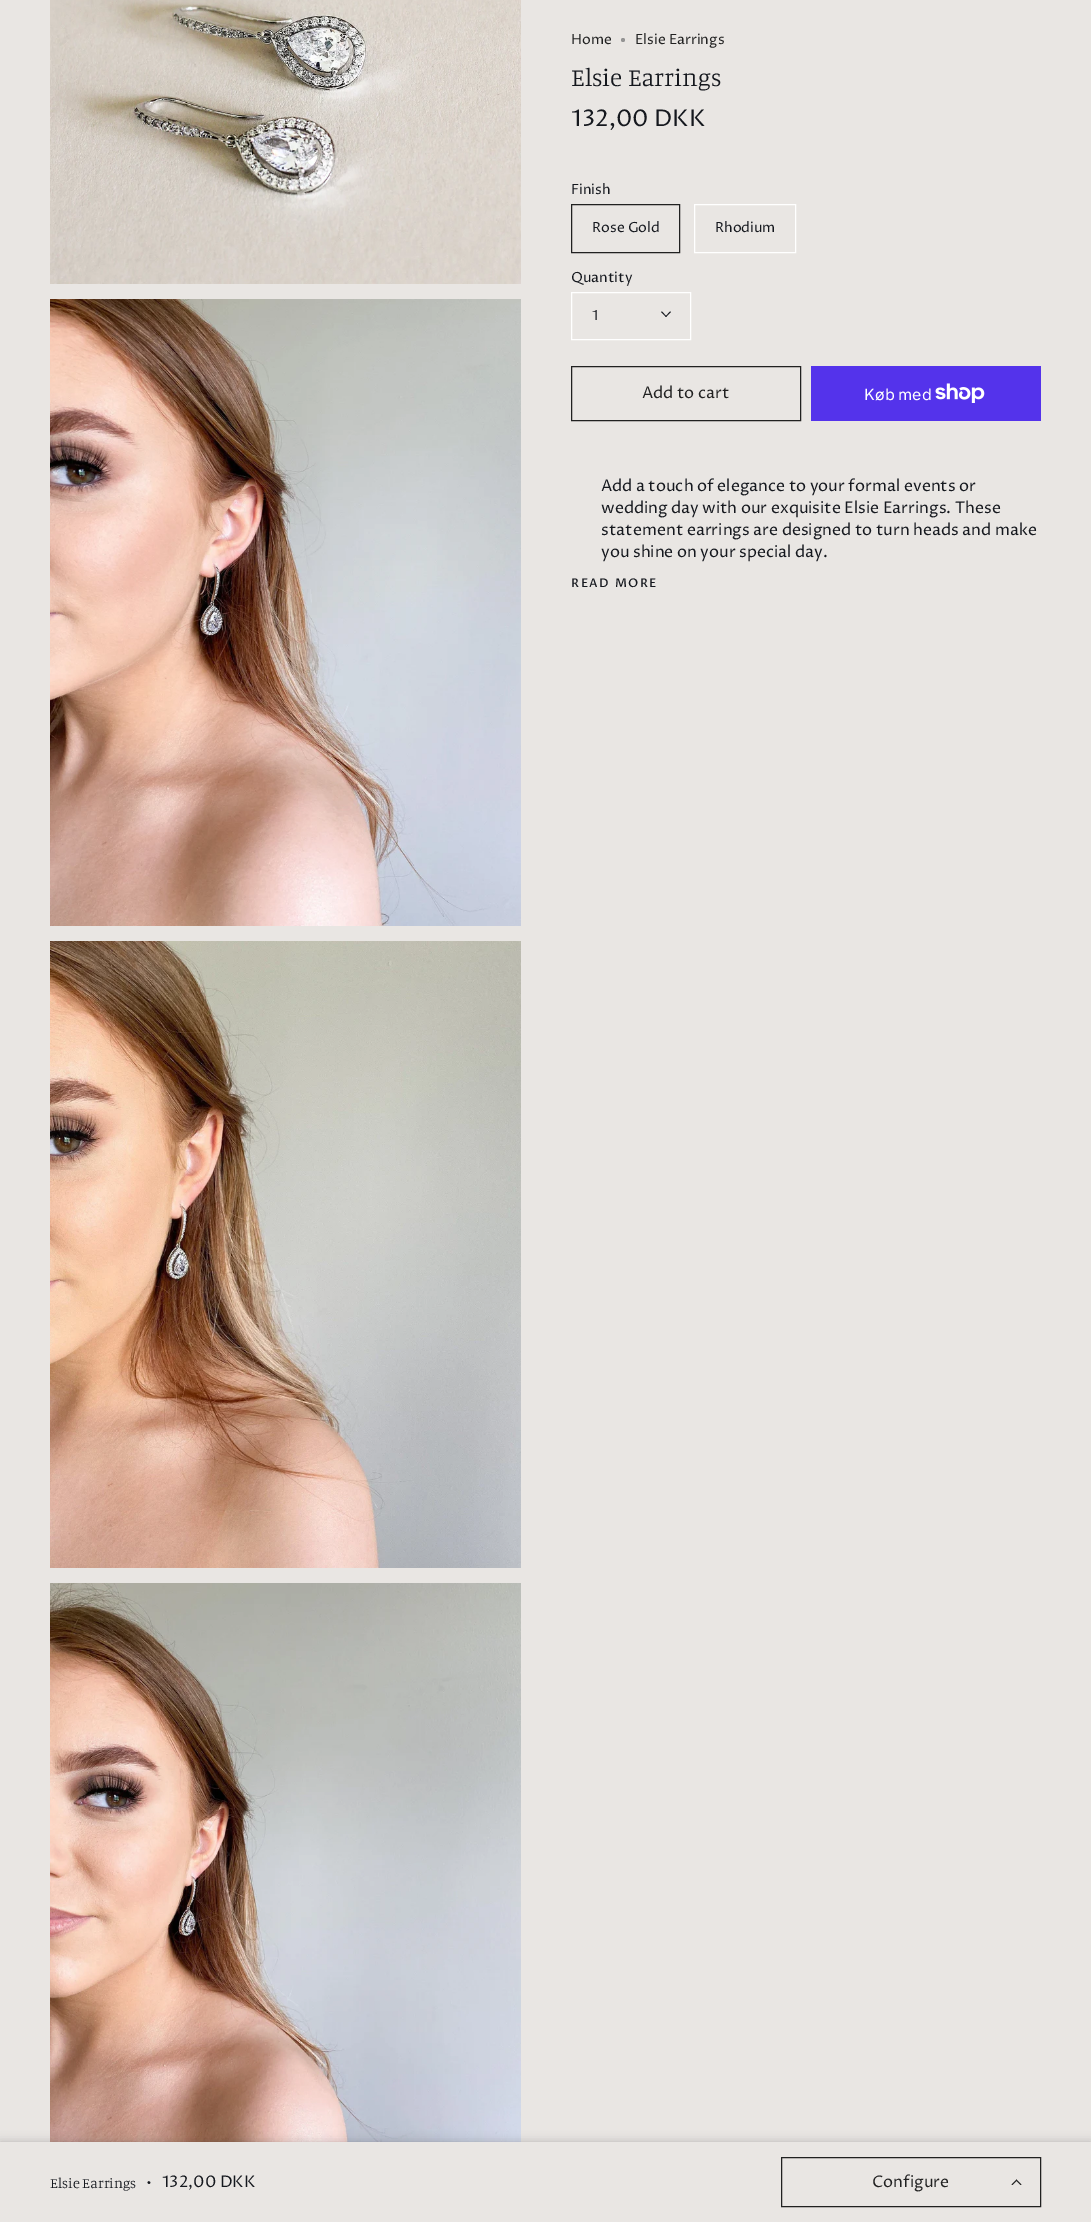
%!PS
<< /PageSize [1091 2222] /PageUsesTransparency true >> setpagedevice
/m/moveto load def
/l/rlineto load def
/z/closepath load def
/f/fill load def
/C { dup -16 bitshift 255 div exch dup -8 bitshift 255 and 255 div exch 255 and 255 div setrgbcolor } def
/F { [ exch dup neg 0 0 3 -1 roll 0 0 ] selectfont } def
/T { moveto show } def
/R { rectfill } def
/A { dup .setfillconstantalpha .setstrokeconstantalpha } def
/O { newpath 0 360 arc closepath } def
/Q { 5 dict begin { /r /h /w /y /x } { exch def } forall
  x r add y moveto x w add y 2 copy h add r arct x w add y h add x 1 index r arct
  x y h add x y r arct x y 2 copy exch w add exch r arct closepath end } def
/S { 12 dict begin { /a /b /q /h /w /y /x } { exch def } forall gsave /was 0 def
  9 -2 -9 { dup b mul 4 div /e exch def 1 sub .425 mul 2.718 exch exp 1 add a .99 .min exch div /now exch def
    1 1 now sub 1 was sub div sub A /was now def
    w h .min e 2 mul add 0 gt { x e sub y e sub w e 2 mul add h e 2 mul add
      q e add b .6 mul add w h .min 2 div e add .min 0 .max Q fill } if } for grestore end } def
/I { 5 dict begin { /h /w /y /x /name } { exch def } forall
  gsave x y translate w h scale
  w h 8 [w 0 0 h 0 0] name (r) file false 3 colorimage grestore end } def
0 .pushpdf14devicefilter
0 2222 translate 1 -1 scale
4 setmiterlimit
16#E9E6E3 C
0 0 1091 2222 R
(1.rgb) 50 0 471 284 I
(2.rgb) 50 299 471 627 I
(3.rgb) 50 941 471 627 I
(4.rgb) 50 1583 471 559 I
/ProzaLibre-Regular 14 F
16#212121 C
(Home) 571 44 T
16#949494 C
623 40 2 O f
16#212121 C
(Elsie Earrings) 635 44 T
/Manuale-Light 25.25 F
16#15181E C
(Elsie Earrings) 571 86 T
/ProzaLibre-Regular 23 F
(132,00 DKK) 571 126 T
/ProzaLibre-Regular 14 F
(Finish) 571 194 T
16#212121 C
571.5 204.5 108 48 rectstroke
16#15181E C
(Rose Gold) 592 232 T
16#FFFFFF C
694.5 204.5 101 48 rectstroke
16#15181E C
(Rhodium) 715 232 T
(Quantity) 571 282 T
16#FFFFFF C
571.5 292.5 119 47 rectstroke
16#15181E C
(1) 592 320 T
665.5 316.5 m 4.5 -5 l 1 .5 l -5 5 l z f
661 312 m 1 -.5 l 4.5 5 l -.5 .5 l z f
16#212121 C
571.5 366.5 229 54 rectstroke
/ProzaLibre-Regular 16 F
(Add to cart) 642 398 T
16#5433EB C
811 366 230 55 R
/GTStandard-Regular 16 F
16#FFFFFF C
(Køb med) 864 400 T
(5.rgb) 935 383 50 20 I
/ProzaLibre-Regular 16 F
16#15181E C
(Add a touch of elegance to your formal events or) 601 491 T
(wedding day with our exquisite Elsie Earrings. These) 601 513 T
(statement earrings are designed to turn heads and make) 601 535 T
(you shine on your special day.) 601 557 T
/ProzaLibre-Medium 12 F
571 587 m 1.5 0 (READ MORE) ashow
16#000000 C
0 2142 1091 80 0 5 .2 S
16#E9E6E3 C
0 2142 1091 80 R
/Manuale-Light 14.5 F
16#15181E C
(Elsie Earrings) 50 2188 T
/ProzaLibre-Regular 16 F
(•) 146 2187 T
(132,00 DKK) 162 2187 T
16#212121 C
781.5 2157.5 259 49 rectstroke
(Configure) 872 2187 T
1017 2180.5 m -4.5 4.5 l -1 -.5 l 5 -5 l z f
1021.5 2184.5 m -1 .5 l -4.5 -4.5 l .5 -1 l z f
.poppdf14devicefilter showpage
